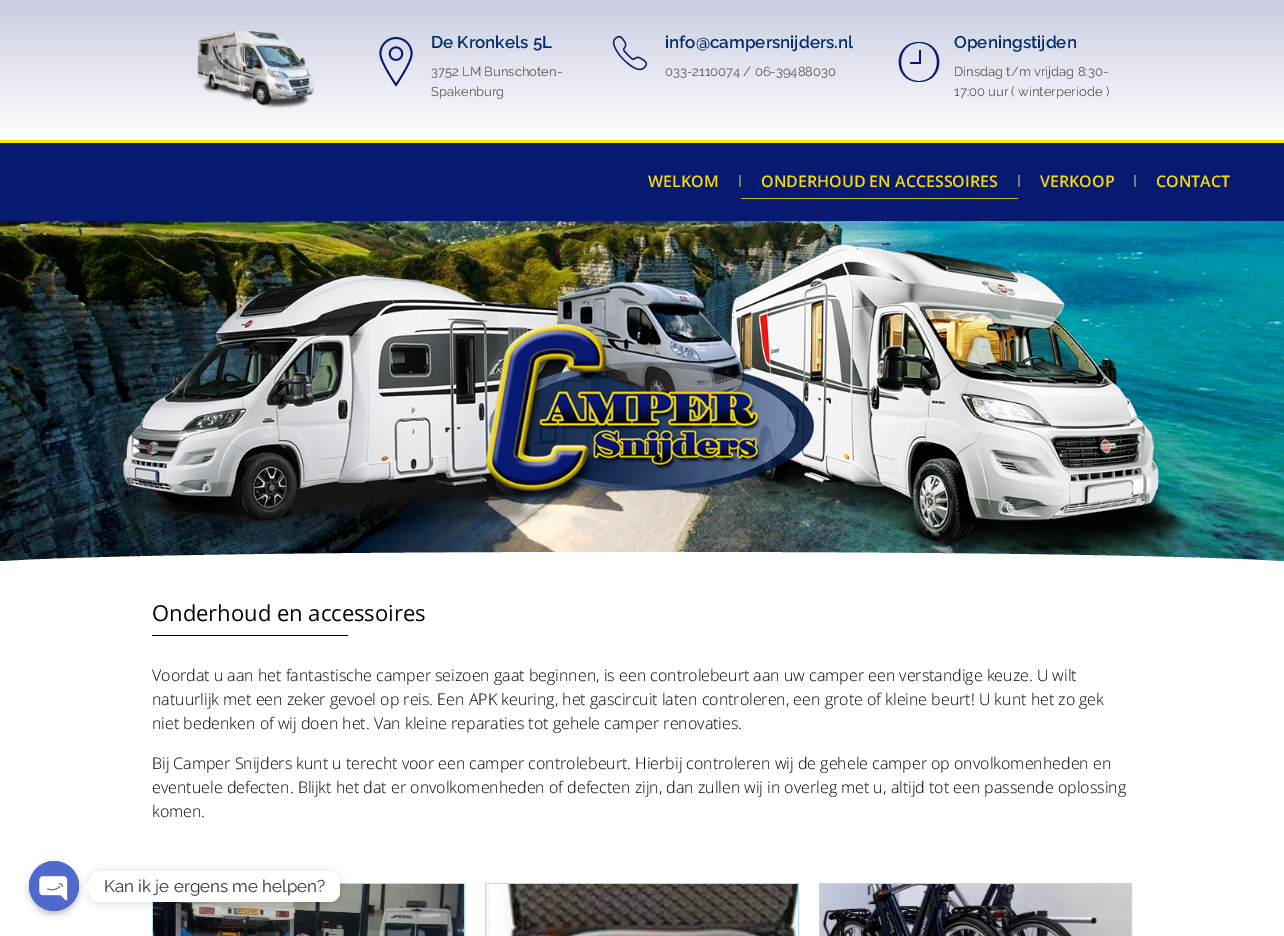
%!PS
<< /PageSize [1284 936] /PageUsesTransparency true >> setpagedevice
/m/moveto load def
/l/rlineto load def
/c/rcurveto load def
/z/closepath load def
/f/fill load def
/q/gsave load def
/Q_/grestore load def
/C { dup -16 bitshift 255 div exch dup -8 bitshift 255 and 255 div exch 255 and 255 div setrgbcolor } def
/F { [ exch dup neg 0 0 3 -1 roll 0 0 ] selectfont } def
/T { moveto show } def
/R { rectfill } def
/A { dup .setfillconstantalpha .setstrokeconstantalpha } def
/O { newpath 0 360 arc closepath } def
/Q { 5 dict begin { /r /h /w /y /x } { exch def } forall
  x r add y moveto x w add y 2 copy h add r arct x w add y h add x 1 index r arct
  x y h add x y r arct x y 2 copy exch w add exch r arct closepath end } def
/S { 12 dict begin { /a /b /q /h /w /y /x } { exch def } forall gsave /was 0 def
  9 -2 -9 { dup b mul 4 div /e exch def 1 sub .425 mul 2.718 exch exp 1 add a .99 .min exch div /now exch def
    1 1 now sub 1 was sub div sub A /was now def
    w h .min e 2 mul add 0 gt { x e sub y e sub w e 2 mul add h e 2 mul add
      q e add b .6 mul add w h .min 2 div e add .min 0 .max Q fill } if } for grestore end } def
/I { 5 dict begin { /h /w /y /x /name } { exch def } forall
  gsave x y translate w h scale
  w h 8 [w 0 0 h 0 0] name (r) file false 3 colorimage grestore end } def
0 .pushpdf14devicefilter
0 936 translate 1 -1 scale
4 setmiterlimit
16#FFFFFF C
0 0 1284 936 R
q 0 0 m 1284 0 l 0 134 l -1284 0 l z clip newpath
<< /ShadingType 2 /ColorSpace /DeviceRGB /Coords [642 0 642 140] /Extend [true true] /Function << /FunctionType 2 /Domain [0 1] /C0 [.788 .804 .878] /C1 [1 1 1] /N 1 >> >> shfill Q_
(1.rgb) 197 30 118 79 I
(2.rgb) 379 37 34 50 I
/Raleway-SemiBold 17 F
16#012C6D C
(De Kronkels 5L) 431 48 T
/Raleway-Regular 13 F
16#545454 C
(3752 LM Bunschoten-) 431 76 T
(Spakenburg) 431 96 T
(3.rgb) 612 35 36 36 I
/Raleway-SemiBold 17 F
16#012C6D C
(info@campersnijders.nl) 665 48 T
/Raleway-Regular 13 F
16#545454 C
(033-2110074 / 06-39488030) 665 76 T
16#081971 C
919 42 m 27 0 27 40 0 40 c -27 0 -27 -40 0 -40 c z 919 81 m 24 0 24 -38 0 -38 c -24 0 -24 38 0 38 c z 919 62 m 0 -12 l 2 0 l 0 14 l -11 0 l 0 -2 l z f
/Raleway-SemiBold 17 F
16#012C6D C
(Openingstijden) 954 48 T
/Raleway-Regular 13 F
16#545454 C
(Dinsdag t/m vrijdag 8:30-) 954 76 T
(17:00 uur \( winterperiode \)) 954 96 T
16#081971 C
0 143 1284 78 R
16#FFE500 C
0 140 1284 3 R
/OpenSans-SemiBold 16 F
16#F5DC04 C
(WELKOM) 648 187 T
16#7A7A7A C
739 175 2 12 R
16#F5DC04 C
(ONDERHOUD EN ACCESSOIRES) 761 187 T
16#CAB918 C
741 198 277 1 R
16#7A7A7A C
1018 175 2 12 R
16#F5DC04 C
(VERKOOP) 1040 187 T
16#7A7A7A C
1134 175 2 12 R
16#F5DC04 C
(CONTACT) 1156 187 T
(4.rgb) 0 221 1284 340 I
16#FFFFFF C
-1 562 m 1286 0 l -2 -2 -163 -10 -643 -10 c -480 0 -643 8 -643 10 c z f
/OpenSans-Regular 22 F
16#000000 C
(Onderhoud en accessoires) 152 621 T
152 635 196 1 R
/OpenSans-Light 16 F
(Voordat u aan het fantastische camper seizoen gaat beginnen, is een controlebeurt aan uw camper een verstandige keuze. U wilt) 152 681 T
(natuurlijk met een zeker gevoel op reis. Een APK keuring, het gascircuit laten controleren, een grote of kleine beurt! U kunt het zo gek) 152 705 T
(niet bedenken of wij doen het. Van kleine reparaties tot gehele camper renovaties.) 152 729 T
(Bij Camper Snijders kunt u terecht voor een camper controlebeurt. Hierbij controleren wij de gehele camper op onvolkomenheden en) 152 769 T
(eventuele defecten. Blijkt het dat er onvolkomenheden of defecten zijn, dan zullen wij in overleg met u, altijd tot een passende oplossing) 152 793 T
(komen.) 152 817 T
16#B2DEF1 C
152.5 883.5 312 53 rectstroke
(5.rgb) 153 884 311 52 I
485.5 883.5 313 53 rectstroke
(6.rgb) 486 884 312 52 I
819.5 883.5 312 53 rectstroke
(7.rgb) 820 884 311 52 I
16#000000 C
89 872 251 31 10 4 .15 S
16#FFFFFF C
89 881.5 m 0 10 l -5 -5 l z f
16#000000 C
29 864 50 50 25 3 .25 S
16#4F6ACA C
54 886 25 O f
(8.rgb) 29 861 50 50 I
16#FFFFFF C
89 871 251 31 10 Q f
/Raleway-Regular 17 F
16#333333 C
(Kan ik je ergens me helpen?) 104 892 T
.poppdf14devicefilter showpage
